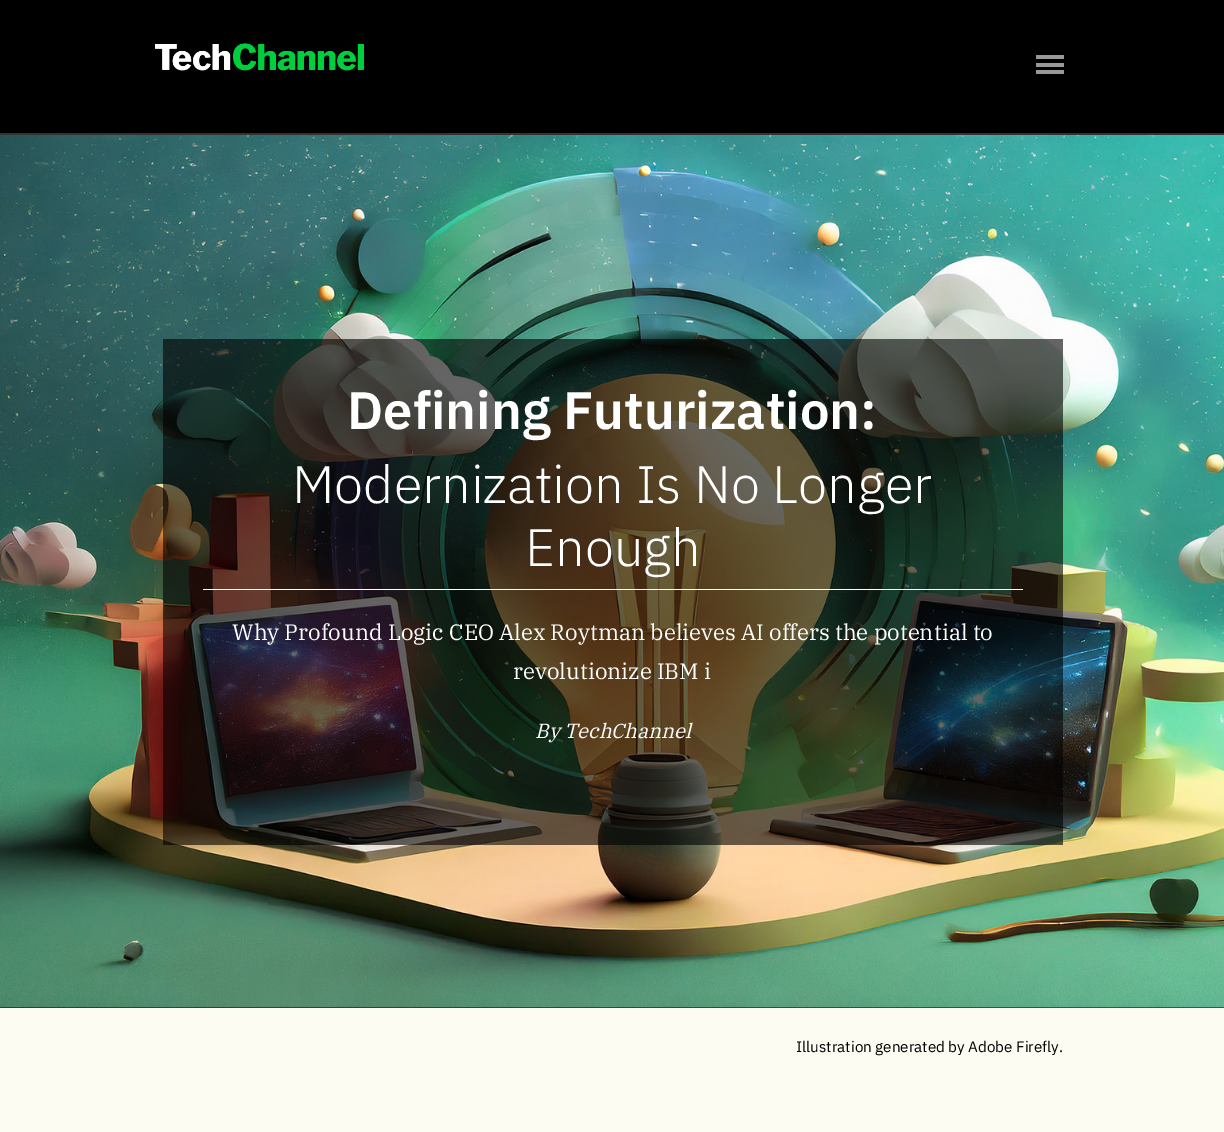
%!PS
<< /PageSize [1224 1132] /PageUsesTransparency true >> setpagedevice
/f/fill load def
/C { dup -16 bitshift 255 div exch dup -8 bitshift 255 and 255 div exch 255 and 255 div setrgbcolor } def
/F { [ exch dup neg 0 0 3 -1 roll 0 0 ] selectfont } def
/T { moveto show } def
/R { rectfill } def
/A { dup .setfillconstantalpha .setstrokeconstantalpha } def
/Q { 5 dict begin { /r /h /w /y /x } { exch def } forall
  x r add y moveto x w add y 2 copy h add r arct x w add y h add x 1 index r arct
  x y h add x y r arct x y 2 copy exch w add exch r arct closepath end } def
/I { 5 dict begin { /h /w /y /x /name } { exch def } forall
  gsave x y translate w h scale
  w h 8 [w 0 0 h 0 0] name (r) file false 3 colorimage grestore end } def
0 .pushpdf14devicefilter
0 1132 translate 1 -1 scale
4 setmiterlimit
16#FCFCF2 C
0 0 1224 1132 R
16#000000 C
0 0 1224 133 R
16#333333 C
0 133 1224 2 R
(1.rgb) 155 43 209 28 I
16#999999 C
1036 55 28 4 1 Q f
1036 63 28 4 1 Q f
1036 70 28 4 1 Q f
16#000000 C
0 1007 1224 1 R
(2.rgb) 0 135 1224 873 I
0.6 A
163 339 900 506 R
/IBMPlexSans-SemiBold 52.6 F
1 A
16#FFFFFF C
(Defining Futurization:) 347 429 T
/IBMPlexSans-Light 52.6 F
(Modernization Is No Longer) 292 503 T
(Enough) 525 566 T
203 589 820 1 R
/IBMPlexSerif-Regular 22.25 F
(Why Profound Logic CEO Alex Roytman believes AI offers the potential to) 232 640 T
(revolutionize IBM i) 513 679 T
/IBMPlexSerif-Italic 20.25 F
(By TechChannel) 535 738 T
/IBMPlexSans-Regular 15.2 F
16#000000 C
(Illustration generated by Adobe Firefly.) 796 1052 T
.poppdf14devicefilter showpage
